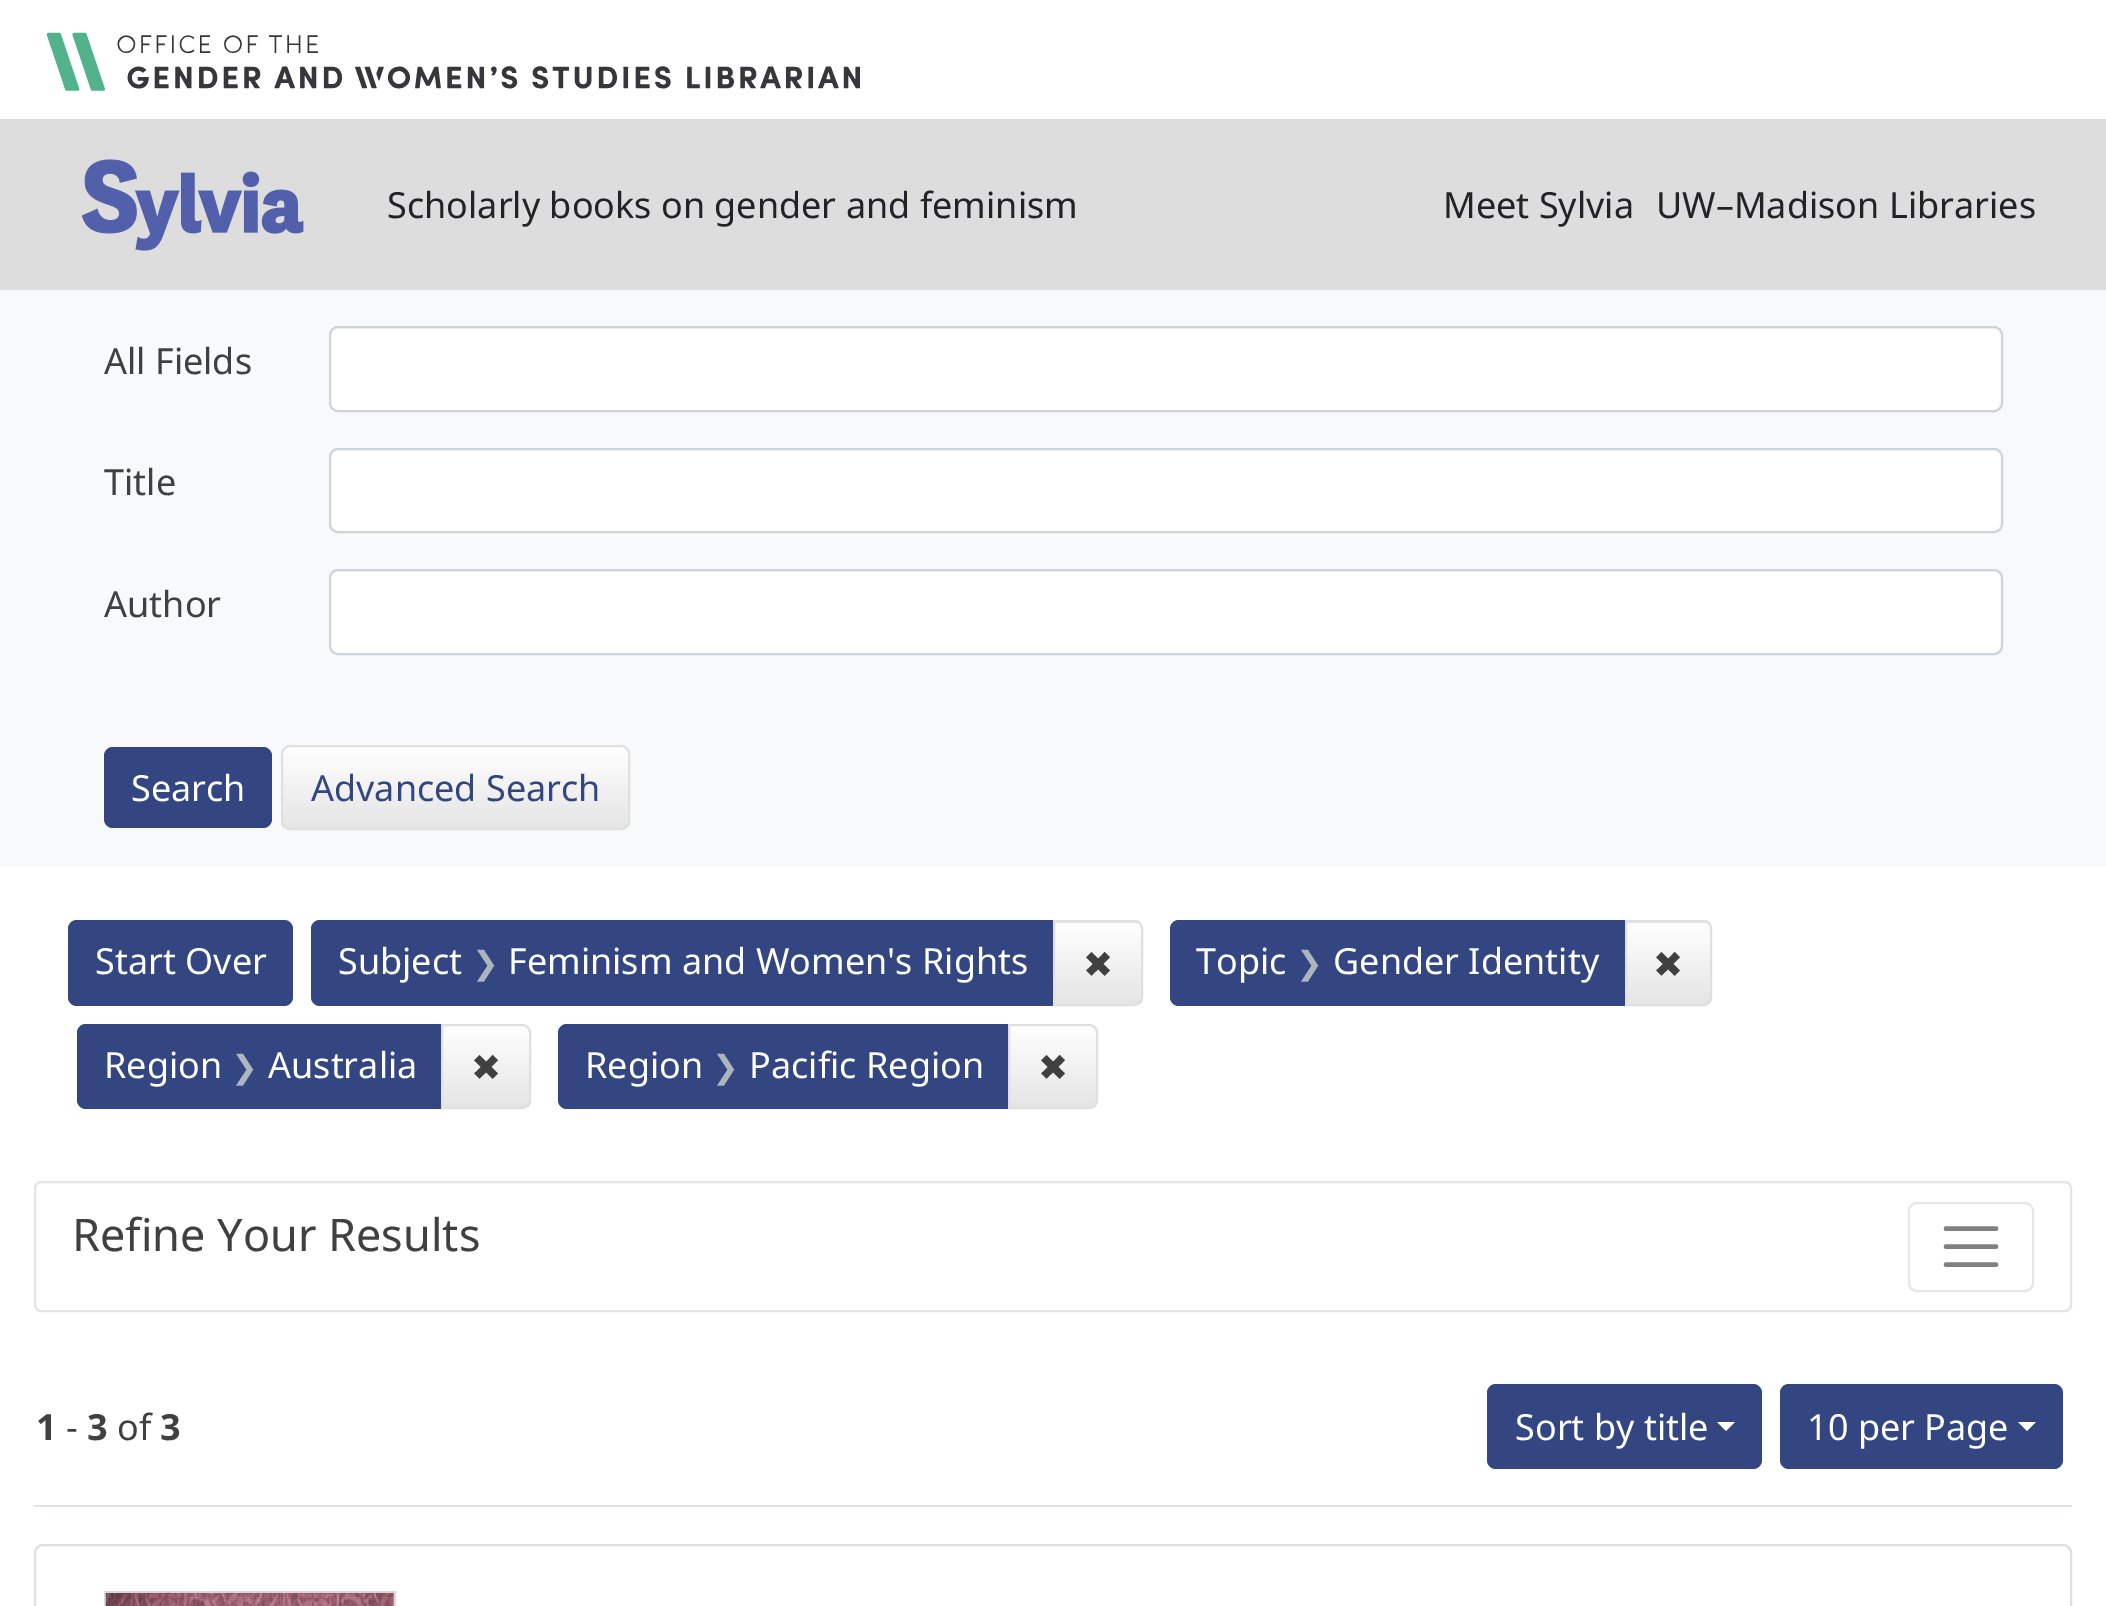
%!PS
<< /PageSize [2106 1606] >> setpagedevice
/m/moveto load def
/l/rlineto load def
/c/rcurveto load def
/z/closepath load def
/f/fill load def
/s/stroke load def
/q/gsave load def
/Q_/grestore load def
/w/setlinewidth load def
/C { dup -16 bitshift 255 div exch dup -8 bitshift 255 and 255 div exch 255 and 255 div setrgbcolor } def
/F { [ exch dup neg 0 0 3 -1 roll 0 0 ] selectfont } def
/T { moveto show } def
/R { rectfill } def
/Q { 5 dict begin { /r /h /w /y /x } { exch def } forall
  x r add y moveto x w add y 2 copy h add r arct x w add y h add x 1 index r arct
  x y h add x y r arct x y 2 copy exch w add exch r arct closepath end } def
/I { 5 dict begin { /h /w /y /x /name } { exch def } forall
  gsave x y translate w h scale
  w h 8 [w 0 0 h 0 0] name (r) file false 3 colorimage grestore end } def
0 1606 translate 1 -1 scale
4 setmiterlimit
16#FFFFFF C
0 0 2106 1606 R
(1.rgb) 46 32 814 59 I
16#DDDDDD C
0 119 2106 171 R
(2.rgb) 81 159 223 92 I
/NotoSans-Regular 36 F
16#232226 C
(Scholarly books on gender and feminism) 387 218 T
(Meet Sylvia) 1443 218 T
(UW–Madison Libraries) 1656 218 T
16#F8F9FA C
0 290 2106 576 R
16#404040 C
(All Fields) 104 374 T
16#FFFFFF C
331 329 1669 81 7 Q f
16#CED4DA C
2 w
330 327 1672 84 8 Q s
16#404040 C
(Title) 104 495 T
16#FFFFFF C
331 450 1669 81 7 Q f
16#CED4DA C
330 449 1672 83 8 Q s
16#404040 C
(Author) 104 617 T
16#FFFFFF C
331 572 1669 81 7 Q f
16#CED4DA C
330 570 1672 84 8 Q s
16#334682 C
104 747 168 81 9 Q f
16#FFFFFF C
(Search) 131 801 T
q
281 745 349 85 9 Q clip newpath
q 281 747 m 349 0 l 0 81 l -349 0 l z clip newpath
<< /ShadingType 2 /ColorSpace /DeviceRGB /Coords [456 747 456 828] /Extend [true true] /Function << /FunctionType 2 /Domain [0 1] /C0 [1 1 1] /C1 [.898 .898 .898] /N 1 >> >> shfill Q_
Q_
16#E0E0E0 C
282 746 347 83 8 Q s
16#334682 C
(Advanced Search) 311 801 T
68 920 225 86 9 Q f
16#FFFFFF C
(Start Over) 95 974 T
16#334682 C
320 920 m 735 0 l 0 86 l -735 0 l -5 0 -9 -4 -9 -9 c 0 -68 l 0 -5 4 -9 9 -9 c z f
16#FFFFFF C
(Subject) 338 974 T
/DejaVuSans-Regular 32 F
16#ADB5BD C
(❯) 472 974 T
/NotoSans-Regular 36 F
16#FFFFFF C
(Feminism and Women's Rights) 508 974 T
q
1053 920 m 81 0 l 5 0 9 4 9 9 c 0 68 l 0 5 -4 9 -9 9 c -81 0 l z clip newpath
q 1053 920 m 90 0 l 0 3 l -90 0 l z clip newpath
<< /ShadingType 2 /ColorSpace /DeviceRGB /Coords [1098 842 1098 923] /Extend [true true] /Function << /FunctionType 2 /Domain [0 1] /C0 [1 1 1] /C1 [.898 .898 .898] /N 1 >> >> shfill Q_
q 1055 923 m 88 0 l 0 81 l -88 0 l z clip newpath
<< /ShadingType 2 /ColorSpace /DeviceRGB /Coords [1098 923 1098 1004] /Extend [true true] /Function << /FunctionType 2 /Domain [0 1] /C0 [1 1 1] /C1 [.898 .898 .898] /N 1 >> >> shfill Q_
Q_
16#E0E0E0 C
1054 921 m 80 0 l 4.5 0 8 3.5 8 8 c 0 68 l 0 4.5 -3.5 8 -8 8 c -80 0 l z s
/DejaVuSans-Regular 36 F
16#404040 C
(✖) 1083 977 T
16#334682 C
1179 920 m 448 0 l 0 86 l -448 0 l -5 0 -9 -4 -9 -9 c 0 -68 l 0 -5 4 -9 9 -9 c z f
/NotoSans-Regular 36 F
16#FFFFFF C
(Topic) 1196 974 T
/DejaVuSans-Regular 32 F
16#ADB5BD C
(❯) 1296 974 T
/NotoSans-Regular 36 F
16#FFFFFF C
(Gender Identity) 1333 974 T
q
1625 920 m 78 0 l 5 0 9 4 9 9 c 0 68 l 0 5 -4 9 -9 9 c -78 0 l z clip newpath
q 1625 920 m 87 0 l 0 3 l -87 0 l z clip newpath
<< /ShadingType 2 /ColorSpace /DeviceRGB /Coords [1668 842 1668 923] /Extend [true true] /Function << /FunctionType 2 /Domain [0 1] /C0 [1 1 1] /C1 [.898 .898 .898] /N 1 >> >> shfill Q_
q 1627 923 m 85 0 l 0 81 l -85 0 l z clip newpath
<< /ShadingType 2 /ColorSpace /DeviceRGB /Coords [1668 923 1668 1004] /Extend [true true] /Function << /FunctionType 2 /Domain [0 1] /C0 [1 1 1] /C1 [.898 .898 .898] /N 1 >> >> shfill Q_
Q_
16#E0E0E0 C
1626 921 m 77 0 l 4.5 0 8 3.5 8 8 c 0 68 l 0 4.5 -3.5 8 -8 8 c -77 0 l z s
/DejaVuSans-Regular 36 F
16#404040 C
(✖) 1653 977 T
16#334682 C
86 1024 m 357 0 l 0 85 l -357 0 l -5 0 -9 -4 -9 -9 c 0 -67 l 0 -5 4 -9 9 -9 c z f
/NotoSans-Regular 36 F
16#FFFFFF C
(Region) 104 1078 T
/DejaVuSans-Regular 32 F
16#ADB5BD C
(❯) 231 1078 T
/NotoSans-Regular 36 F
16#FFFFFF C
(Australia) 268 1078 T
q
441 1024 m 81 0 l 5 0 9 4 9 9 c 0 67 l 0 5 -4 9 -9 9 c -81 0 l z clip newpath
q 443 1026 m 88 0 l 0 81 l -88 0 l z clip newpath
<< /ShadingType 2 /ColorSpace /DeviceRGB /Coords [486 1026 486 1107] /Extend [true true] /Function << /FunctionType 2 /Domain [0 1] /C0 [1 1 1] /C1 [.898 .898 .898] /N 1 >> >> shfill Q_
Q_
16#E0E0E0 C
442 1025 m 80 0 l 4.5 0 8 3.5 8 8 c 0 67 l 0 4.5 -3.5 8 -8 8 c -80 0 l z s
/DejaVuSans-Regular 36 F
16#404040 C
(✖) 471 1080 T
16#334682 C
567 1024 m 443 0 l 0 85 l -443 0 l -5 0 -9 -4 -9 -9 c 0 -67 l 0 -5 4 -9 9 -9 c z f
/NotoSans-Regular 36 F
16#FFFFFF C
(Region) 585 1078 T
/DejaVuSans-Regular 32 F
16#ADB5BD C
(❯) 712 1078 T
/NotoSans-Regular 36 F
16#FFFFFF C
(Pacific Region) 749 1078 T
q
1008 1024 m 81 0 l 5 0 9 4 9 9 c 0 67 l 0 5 -4 9 -9 9 c -81 0 l z clip newpath
q 1010 1026 m 88 0 l 0 81 l -88 0 l z clip newpath
<< /ShadingType 2 /ColorSpace /DeviceRGB /Coords [1053 1026 1053 1107] /Extend [true true] /Function << /FunctionType 2 /Domain [0 1] /C0 [1 1 1] /C1 [.898 .898 .898] /N 1 >> >> shfill Q_
Q_
16#E0E0E0 C
1009 1025 m 80 0 l 4.5 0 8 3.5 8 8 c 0 67 l 0 4.5 -3.5 8 -8 8 c -80 0 l z s
/DejaVuSans-Regular 36 F
16#404040 C
(✖) 1038 1080 T
16#E5E5E5 C
35 1182 2036 129 6 Q s
/NotoSans-Regular 45 F
16#404040 C
(Refine Your Results) 72 1251 T
16#E6E6E6 C
1909 1203 124 88 8 Q s
16#808080 C
4.5 w
1 setlinecap
1946 1228.5 m 50 0 l 1946 1246.5 m 50 0 l 1946 1264.5 m 50 0 l s
16#DEE2E6 C
34 1505 2038 2 R
/NotoSans-Bold 36 F
16#404040 C
(1) 36 1440 T
/NotoSans-Regular 36 F
(-) 66 1440 T
/NotoSans-Bold 36 F
(3) 87 1440 T
/NotoSans-Regular 36 F
(of) 117 1440 T
/NotoSans-Bold 36 F
(3) 160 1440 T
16#334682 C
1487 1384 275 85 9 Q f
/NotoSans-Regular 36 F
16#FFFFFF C
(Sort by title) 1515 1440 T
1717 1422 m 18 0 l -9 9 l z f
16#334682 C
1780 1384 283 85 9 Q f
16#FFFFFF C
(10 per Page) 1807 1440 T
2018 1422 m 18 0 l -9 9 l z f
16#E0E0E0 C
2 w
0 setlinecap
35 1545 2036 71 8 Q s
16#D9D9D9 C
105 1592 290 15 rectstroke
(3.rgb) 105 1593 289 13 I
showpage
